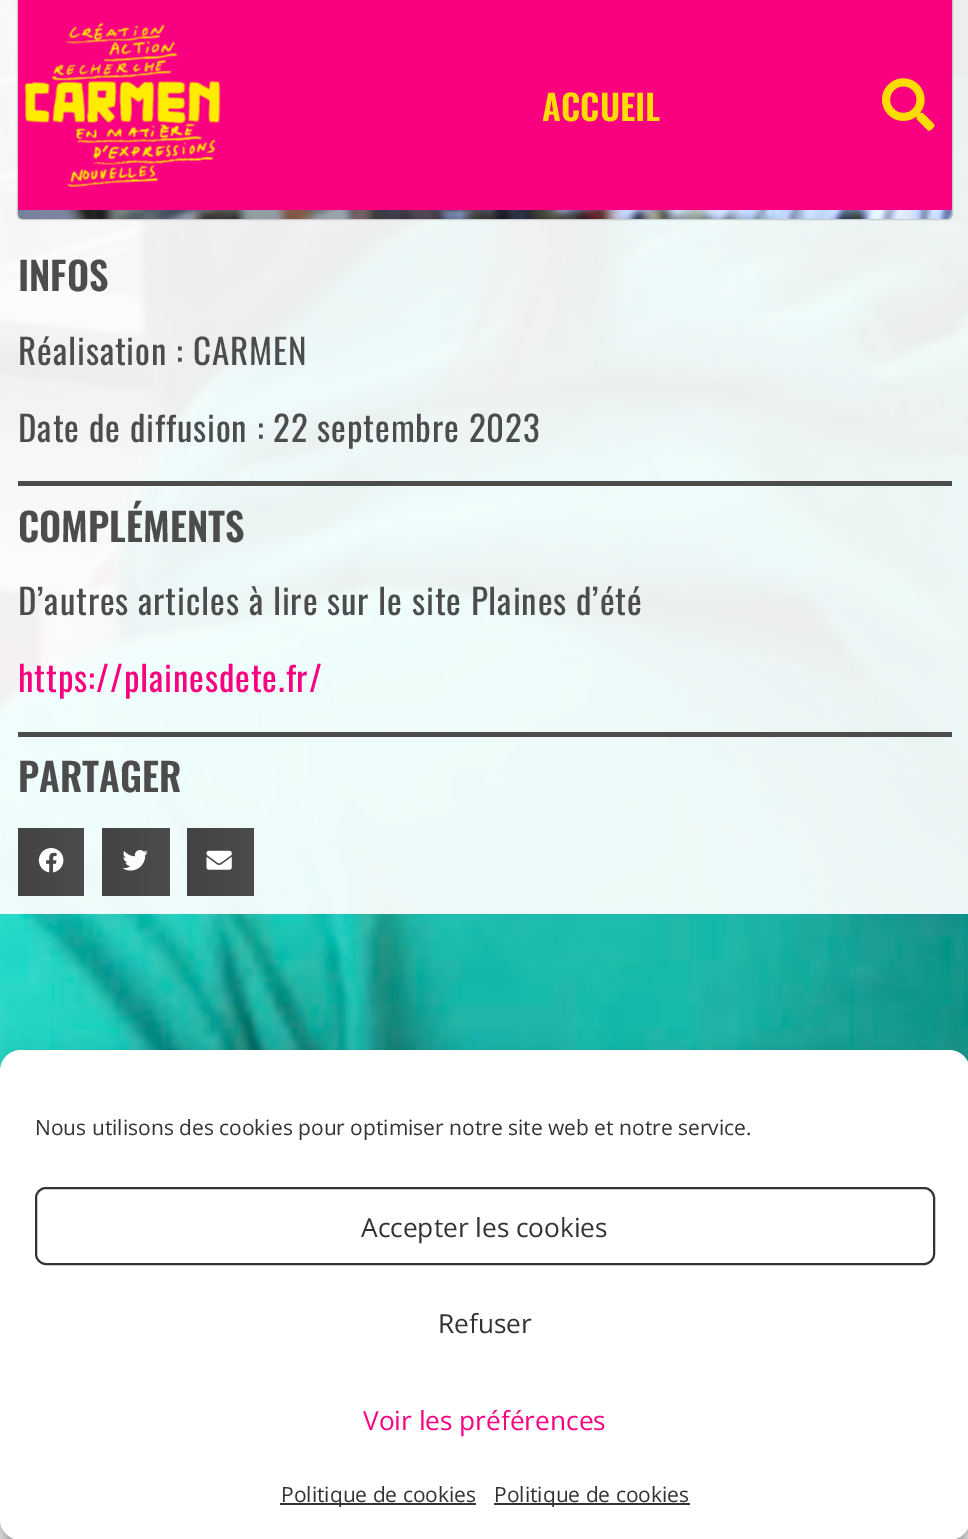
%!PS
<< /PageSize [968 1539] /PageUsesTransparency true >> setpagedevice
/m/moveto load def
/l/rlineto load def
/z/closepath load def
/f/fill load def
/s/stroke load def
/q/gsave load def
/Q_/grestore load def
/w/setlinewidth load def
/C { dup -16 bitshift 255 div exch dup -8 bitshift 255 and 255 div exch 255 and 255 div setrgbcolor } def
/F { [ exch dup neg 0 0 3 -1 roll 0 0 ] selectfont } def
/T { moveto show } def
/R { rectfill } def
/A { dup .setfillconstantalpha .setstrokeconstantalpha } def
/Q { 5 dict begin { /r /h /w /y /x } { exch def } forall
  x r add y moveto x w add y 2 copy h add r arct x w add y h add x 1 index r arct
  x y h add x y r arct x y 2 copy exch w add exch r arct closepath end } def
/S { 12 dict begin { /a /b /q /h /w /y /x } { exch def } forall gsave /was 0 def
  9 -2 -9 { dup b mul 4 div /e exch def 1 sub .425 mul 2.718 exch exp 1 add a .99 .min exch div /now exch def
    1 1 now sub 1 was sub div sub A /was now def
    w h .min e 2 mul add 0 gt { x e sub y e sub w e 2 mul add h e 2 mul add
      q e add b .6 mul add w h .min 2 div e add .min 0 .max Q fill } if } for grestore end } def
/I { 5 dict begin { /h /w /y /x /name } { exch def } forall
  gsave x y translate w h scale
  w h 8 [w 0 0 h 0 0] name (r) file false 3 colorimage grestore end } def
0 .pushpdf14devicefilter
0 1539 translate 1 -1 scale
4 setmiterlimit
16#FFFFFF C
0 0 968 1539 R
(1.rgb) 0 0 968 1071 I
0.92 A
0 0 968 914 R
q
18 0 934 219 rectclip
1 A
16#000000 C
18 -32 934 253 5 9 .15 S
Q_
1 A
16#000000 C
18 -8 934 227 5 1 .5 S
16#FFFFFF C
18 -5 934 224 5 Q f
16#F90081 C
18 0 934 210 R
(2.rgb) 24 22 197 166 I
/Oswald-SemiBold 35 F
16#FFDC00 C
(ACCUEIL) 542 121 T
(3.rgb) 882 78 53 53 I
(4.rgb) 18 210 934 9 I
/Oswald-SemiBold 38.5 F
16#4C4C4C C
(INFOS) 18 291 T
/Oswald-Regular 35 F
18 365 m .88 0 (Réalisation : CARMEN) ashow
18 442 m .88 0 (Date de diffusion : 22 septembre 2023) ashow
18 481 934 5 R
18 732 934 5 R
/Oswald-SemiBold 38.5 F
(COMPLÉMENTS) 18 542 T
/Oswald-Regular 35 F
18 615 m .88 0 (D’autres articles à lire sur le site Plaines d’été) ashow
16#F90081 C
18 692 m .88 0 (https://plainesdete.fr/) ashow
/Oswald-SemiBold 38.5 F
16#4C4C4C C
(PARTAGER) 18 792 T
q 18 828 m 66 0 l 0 68 l -66 0 l z clip newpath
<< /ShadingType 2 /ColorSpace /DeviceRGB /Coords [18 862 84 862] /Extend [true true] /Function << /FunctionType 2 /Domain [0 1] /C0 [.263 .263 .263] /C1 [.298 .298 .298] /N 1 >> >> shfill Q_
(5.rgb) 38 848 26 25 I
q 102 828 m 68 0 l 0 68 l -68 0 l z clip newpath
<< /ShadingType 2 /ColorSpace /DeviceRGB /Coords [102 862 170 862] /Extend [true true] /Function << /FunctionType 2 /Domain [0 1] /C0 [.263 .263 .263] /C1 [.298 .298 .298] /N 1 >> >> shfill Q_
(6.rgb) 122 850 26 21 I
q 187 828 m 67 0 l 0 68 l -67 0 l z clip newpath
<< /ShadingType 2 /ColorSpace /DeviceRGB /Coords [187 862 254 862] /Extend [true true] /Function << /FunctionType 2 /Domain [0 1] /C0 [.263 .263 .263] /C1 [.298 .298 .298] /N 1 >> >> shfill Q_
(7.rgb) 206 850 26 20 I
16#000000 C
0 1061 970 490 21 5 .23 S
0 1068 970 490 21 17.5 .19 S
16#FFFFFF C
0 1050 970 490 21 Q f
/OpenSans-Regular 21 F
16#333333 C
(Nous utilisons des cookies pour optimiser notre site web et notre service.) 35 1135 T
2 w
36 1188 898 76 10 Q s
/OpenSans-Regular 26.25 F
(Accepter les cookies) 361 1237 T
(Refuser) 438 1333 T
16#F90081 C
(Voir les préférences) 363 1430 T
16#333333 C
280 1503 196 2 R
/OpenSans-Regular 21 F
(Politique de cookies) 281 1502 T
494 1503 196 2 R
(Politique de cookies) 494 1502 T
.poppdf14devicefilter showpage
